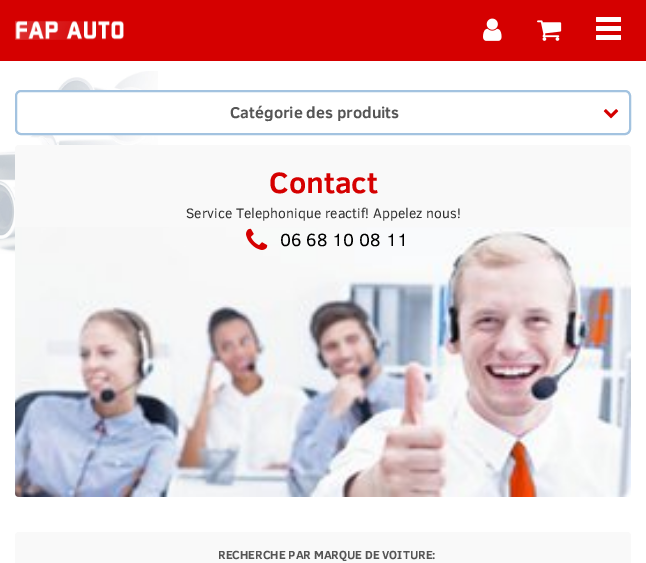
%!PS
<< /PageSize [646 563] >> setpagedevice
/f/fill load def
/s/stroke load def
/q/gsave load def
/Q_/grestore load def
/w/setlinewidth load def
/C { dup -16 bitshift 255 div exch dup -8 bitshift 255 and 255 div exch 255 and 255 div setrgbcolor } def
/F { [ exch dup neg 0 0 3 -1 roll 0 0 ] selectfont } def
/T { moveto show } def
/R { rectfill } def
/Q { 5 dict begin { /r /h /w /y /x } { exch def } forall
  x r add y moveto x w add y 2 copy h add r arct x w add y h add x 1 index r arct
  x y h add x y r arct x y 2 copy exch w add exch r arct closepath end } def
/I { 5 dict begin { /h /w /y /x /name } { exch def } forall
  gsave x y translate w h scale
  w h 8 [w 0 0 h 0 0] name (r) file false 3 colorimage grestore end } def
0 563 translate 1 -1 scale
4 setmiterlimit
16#FFFFFF C
0 0 646 563 R
(1.rgb) 0 71 158 199 I
16#D50000 C
0 0 646 61 R
(2.rgb) 15 20 109 20 I
(3.rgb) 483 18 19 23 I
(4.rgb) 537 20 25 21 I
16#FFFFFF C
596 17 25 5 1 Q f
596 26 25 5 1 Q f
596 35 25 5 1 Q f
16 91 614 43 5 Q q f Q_
16#A3C3E0 C
2 w
s
/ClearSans-Bold 16 F
16#555555 C
(Catégorie des produits) 230 118 T
(5.rgb) 603 109 16 10 I
16#F9F9F9 C
15 145 616 352 4 Q f
(6.rgb) 15 227 616 270 I
/ClearSans-Bold 30 F
16#D50000 C
(Contact) 269 193 T
/ClearSans-Regular 14 F
16#333333 C
(Service Telephonique reactif! Appelez nous!) 186 218 T
(7.rgb) 246 228 22 22 I
/ClearSans-Regular 18 F
16#000000 C
(06 68 10 08 11) 280 246 T
16#F9F9F9 C
15 532 616 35 4 Q f
/ClearSans-Bold 12 F
16#555555 C
(RECHERCHE PAR MARQUE DE VOITURE:) 218 559 T
showpage
